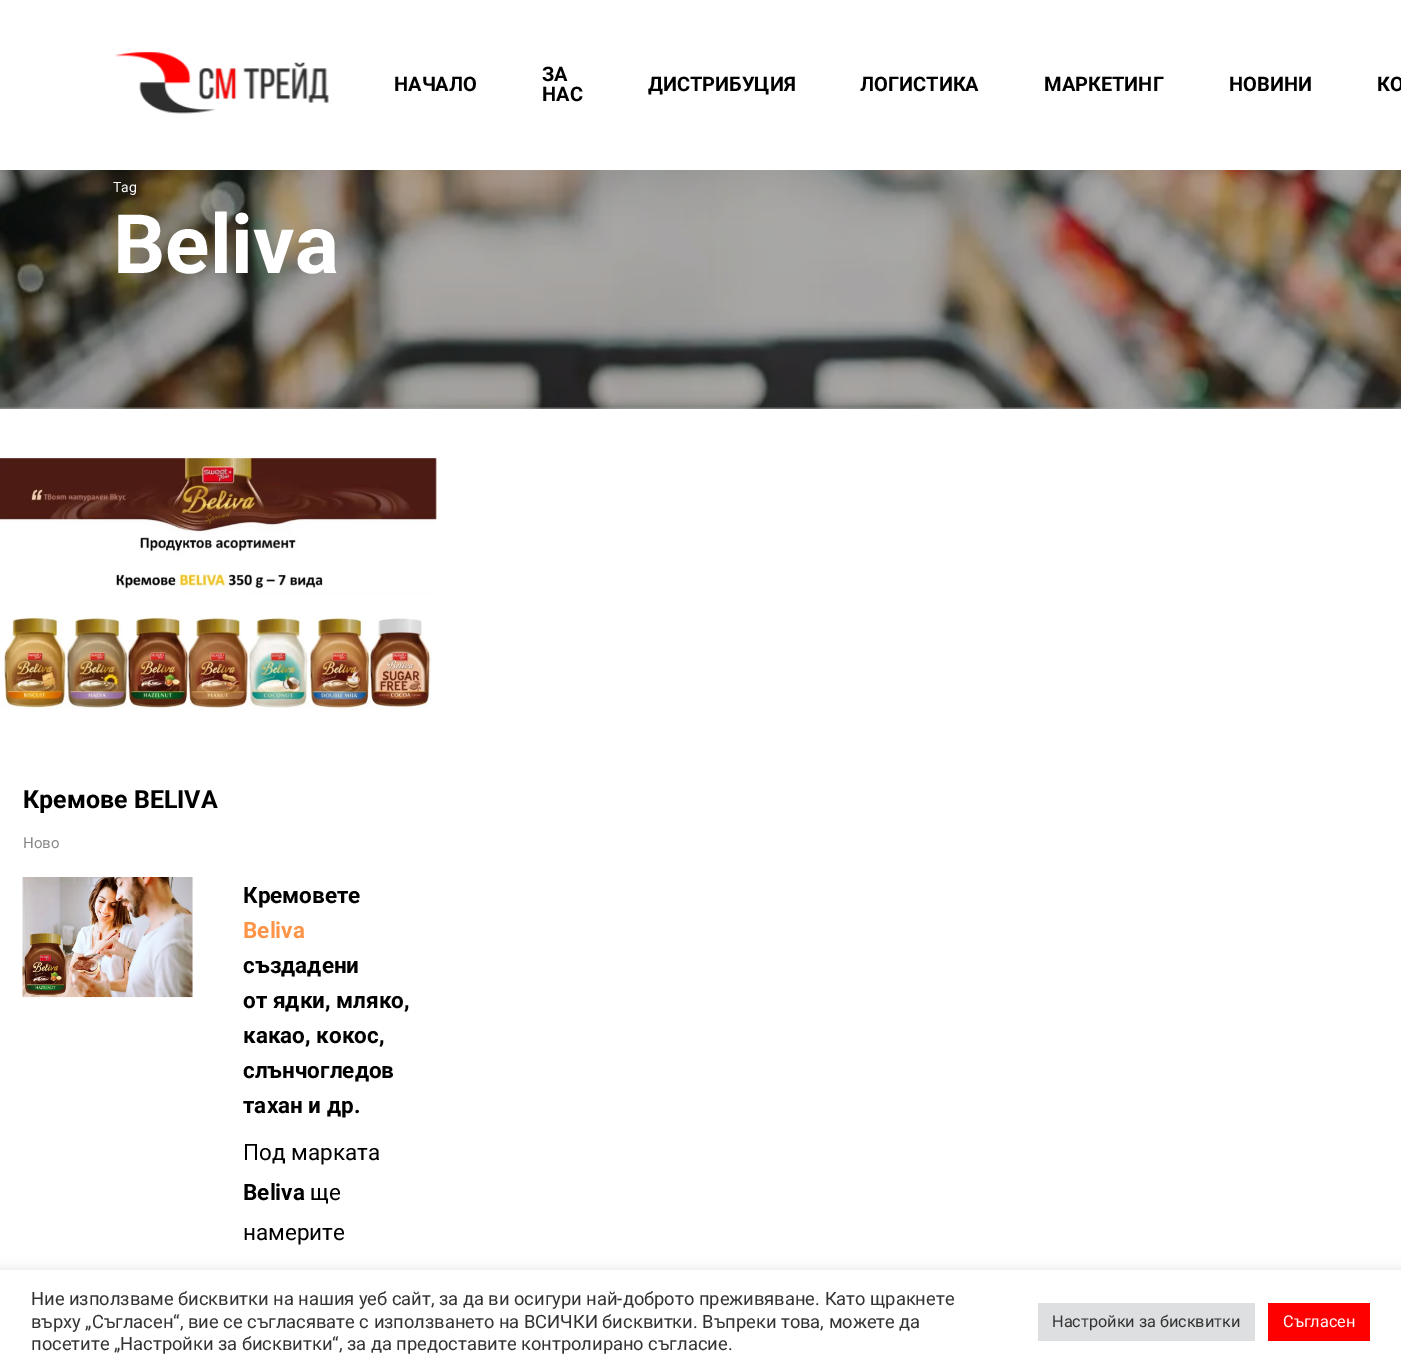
%!PS
<< /PageSize [1401 1372] /PageUsesTransparency true >> setpagedevice
/C { dup -16 bitshift 255 div exch dup -8 bitshift 255 and 255 div exch 255 and 255 div setrgbcolor } def
/F { [ exch dup neg 0 0 3 -1 roll 0 0 ] selectfont } def
/T { moveto show } def
/R { rectfill } def
/A { dup .setfillconstantalpha .setstrokeconstantalpha } def
/Q { 5 dict begin { /r /h /w /y /x } { exch def } forall
  x r add y moveto x w add y 2 copy h add r arct x w add y h add x 1 index r arct
  x y h add x y r arct x y 2 copy exch w add exch r arct closepath end } def
/S { 12 dict begin { /a /b /q /h /w /y /x } { exch def } forall gsave /was 0 def
  9 -2 -9 { dup b mul 4 div /e exch def 1 sub .425 mul 2.718 exch exp 1 add a .99 .min exch div /now exch def
    1 1 now sub 1 was sub div sub A /was now def
    w h .min e 2 mul add 0 gt { x e sub y e sub w e 2 mul add h e 2 mul add
      q e add b .6 mul add w h .min 2 div e add .min 0 .max Q fill } if } for grestore end } def
/I { 5 dict begin { /h /w /y /x /name } { exch def } forall
  gsave x y translate w h scale
  w h 8 [w 0 0 h 0 0] name (r) file false 3 colorimage grestore end } def
0 .pushpdf14devicefilter
0 1372 translate 1 -1 scale
4 setmiterlimit
16#FFFFFF C
0 0 1401 1372 R
16#AFAFAF C
0 407 1401 2 R
(1.rgb) 115 51 214 63 I
/Roboto-Bold 20 F
16#000000 C
(НАЧАЛО) 394 91 T
(ЗА) 542 81 T
(НАС) 542 101 T
(ДИСТРИБУЦИЯ) 648 91 T
(ЛОГИСТИКА) 860 91 T
(МАРКЕТИНГ) 1044 91 T
(НОВИНИ) 1229 91 T
(КО) 1377 91 T
(2.rgb) 0 170 1401 239 I
/Roboto-Regular 14 F
16#FFFFFF C
(Tag) 113 192 T
/Roboto-Bold 82 F
(Beliva) 113 273 T
(3.rgb) 0 458 437 251 I
/Roboto-Bold 25 F
16#000000 C
(Кремове BELIVA) 23 808 T
/Roboto-Regular 15 F
16#888888 C
(Ново) 23 848 T
(4.rgb) 22 877 171 121 I
/Roboto-Bold 22.5 F
16#000000 C
(Кремовете) 243 903 T
16#FE9447 C
(Beliva) 243 938 T
16#000000 C
(създадени) 243 973 T
(от ядки, мляко,) 243 1008 T
(какао, кокос,) 243 1043 T
(слънчогледов) 243 1078 T
(тахан и др.) 243 1113 T
/Roboto-Regular 22.5 F
(Под марката) 243 1160 T
/Roboto-Bold 22.5 F
(Beliva) 243 1200 T
/Roboto-Regular 22.5 F
(ще) 310 1200 T
(намерите) 243 1240 T
16#ACABAB C
0 1269 1401 102 0 6 .3 S
16#FFFFFF C
0 1270 1401 102 R
/Roboto-Regular 18.33 F
16#333333 C
(Ние използваме бисквитки на нашия уеб сайт, за да ви осигури най-доброто преживяване. Като щракнете) 31 1305 T
(върху „Съгласен“, вие се съгласявате с използването на ВСИЧКИ бисквитки. Въпреки това, можете да) 31 1328 T
(посетите „Настройки за бисквитки“, за да предоставите контролирано съгласие.) 31 1350 T
16#DEDFE0 C
1038 1303 217 38 R
/Roboto-Regular 16.25 F
16#333333 C
(Настройки за бисквитки) 1052 1327 T
16#FF0000 C
1268 1303 102 38 R
16#FFFFFF C
(Съгласен) 1283 1327 T
.poppdf14devicefilter showpage
